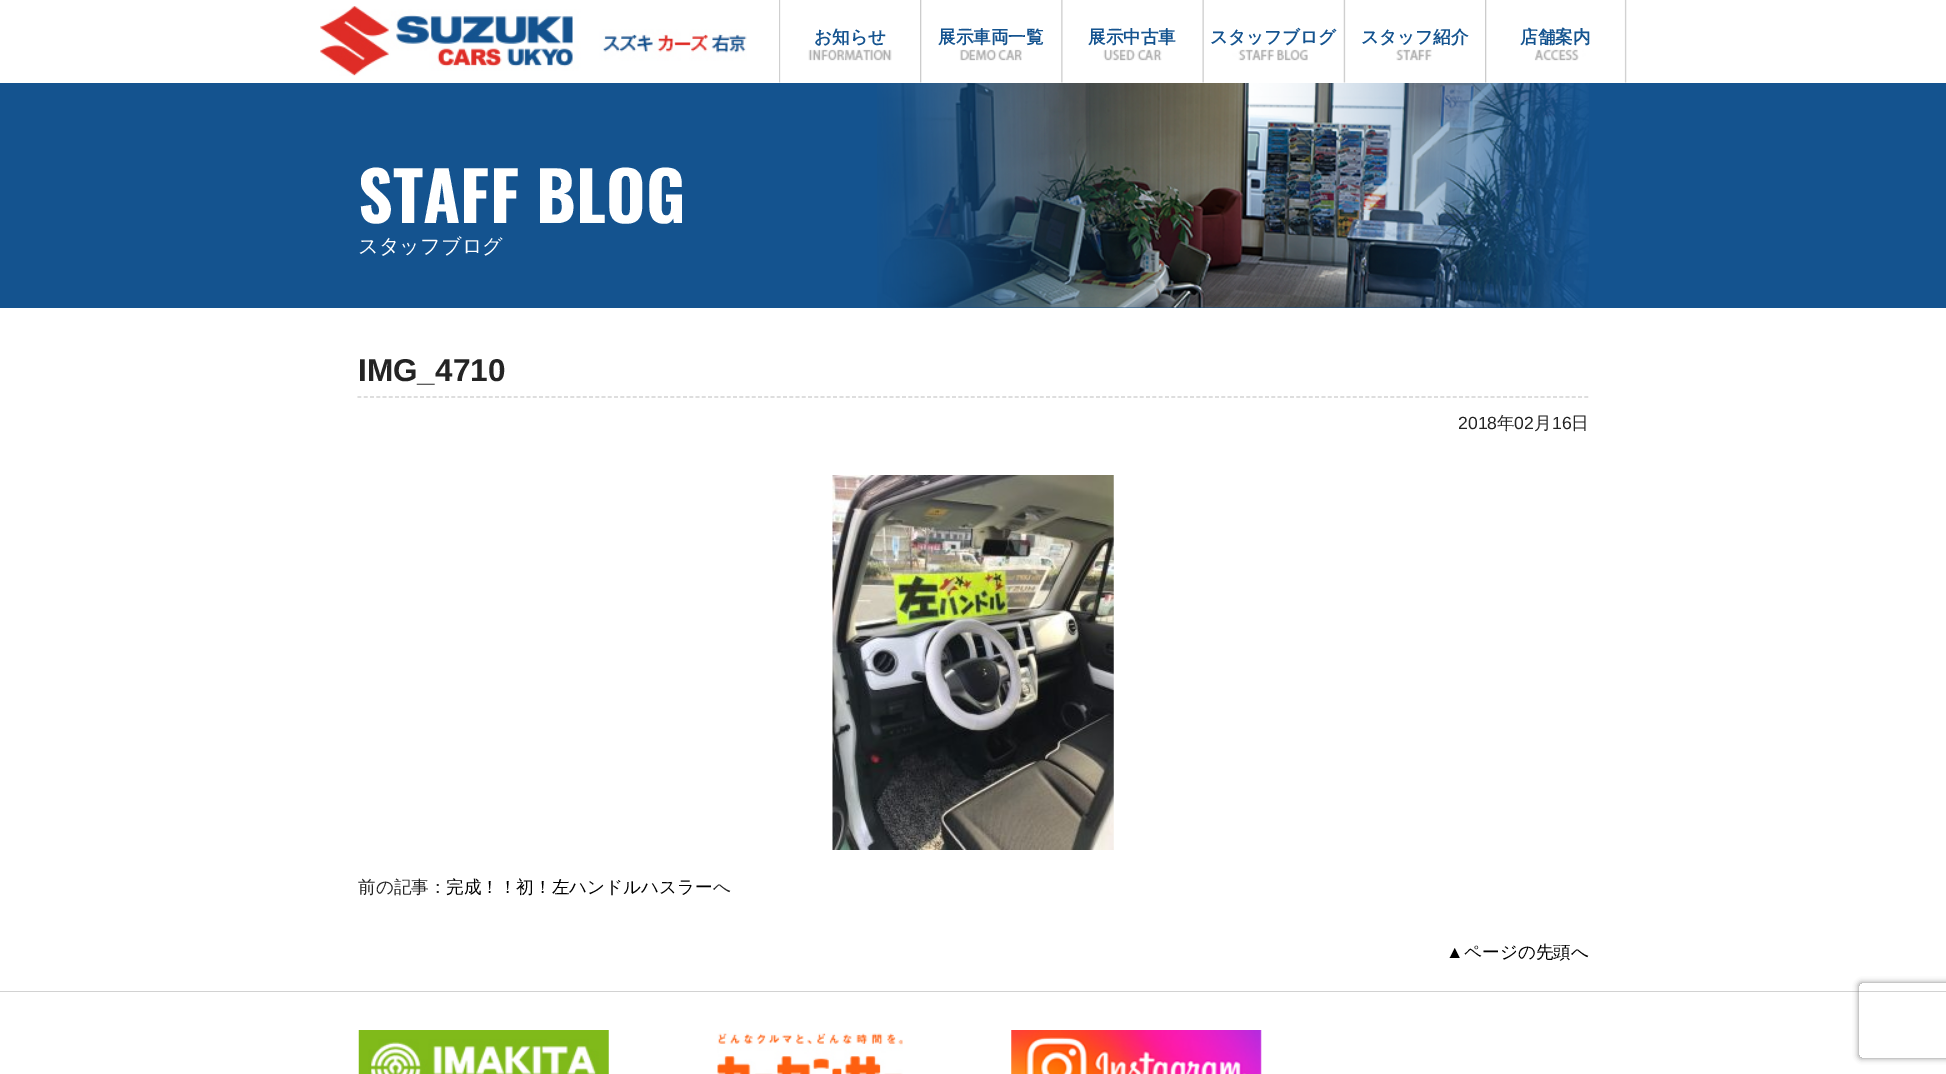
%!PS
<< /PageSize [1946 1074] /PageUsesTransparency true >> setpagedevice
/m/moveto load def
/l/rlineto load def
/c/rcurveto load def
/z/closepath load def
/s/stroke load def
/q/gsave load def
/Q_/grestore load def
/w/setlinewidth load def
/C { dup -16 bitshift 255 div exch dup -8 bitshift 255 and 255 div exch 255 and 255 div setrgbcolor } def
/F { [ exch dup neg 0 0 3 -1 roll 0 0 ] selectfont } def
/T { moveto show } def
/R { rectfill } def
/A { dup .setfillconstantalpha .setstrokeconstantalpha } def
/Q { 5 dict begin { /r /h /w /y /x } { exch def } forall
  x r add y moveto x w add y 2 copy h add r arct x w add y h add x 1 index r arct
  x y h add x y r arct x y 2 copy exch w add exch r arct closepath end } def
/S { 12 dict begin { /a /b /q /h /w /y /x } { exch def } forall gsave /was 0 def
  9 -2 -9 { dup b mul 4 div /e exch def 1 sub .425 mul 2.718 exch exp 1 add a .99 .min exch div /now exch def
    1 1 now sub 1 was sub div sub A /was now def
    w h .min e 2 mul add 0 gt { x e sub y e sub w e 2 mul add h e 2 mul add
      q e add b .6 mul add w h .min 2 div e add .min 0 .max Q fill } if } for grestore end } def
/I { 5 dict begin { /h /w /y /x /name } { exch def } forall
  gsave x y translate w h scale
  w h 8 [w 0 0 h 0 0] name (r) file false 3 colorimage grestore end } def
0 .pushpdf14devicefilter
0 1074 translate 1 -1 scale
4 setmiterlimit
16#FFFFFF C
0 0 1946 1074 R
(1.rgb) 320 6 427 70 I
(2.rgb) 779 0 113 83 I
/WenQuanYiZenHei-Bold 17.6 F
16#14538F C
(お知らせ) 814 43 T
(3.rgb) 920 0 102 83 I
(展示車両一覧) 938 43 T
(4.rgb) 1061 0 101 83 I
(展示中古車) 1088 43 T
(5.rgb) 1202 0 106 83 I
(スタッフブログ) 1210 43 T
(6.rgb) 1343 0 89 83 I
(スタッフ紹介) 1361 43 T
(7.rgb) 1485 0 142 83 I
(店舗案内) 1520 43 T
0 83 1946 225 R
(8.rgb) 877 83 712 225 I
/Oswald-Bold 67.75 F
16#FFFFFF C
(STAFF BLOG) 358 223 T
/WenQuanYiZenHei-Medium 20.25 F
(スタッフブログ) 358 253 T
16#D2D2D2 C
1.2 w
[3.75 2.51] 0 setdash
357.5 397 m 1231.5 0 l s
/LiberationSans-Bold 31.5 F
16#242424 C
(IMG_4710) 358 381 T
/LiberationSans-Regular 17.6 F
(2018) 1458 429 T
/WenQuanYiZenHei-Medium 17.6 F
(年) 1497 429 T
/LiberationSans-Regular 17.6 F
(02) 1514 429 T
/WenQuanYiZenHei-Medium 17.6 F
(月) 1534 429 T
/LiberationSans-Regular 17.6 F
(16) 1552 429 T
/WenQuanYiZenHei-Medium 17.6 F
(日) 1571 429 T
(9.rgb) 832 475 282 375 I
(前の記事：) 358 893 T
16#000000 C
(完成！！初！左ハンドルハスラー) 446 893 T
16#242424 C
(へ) 713 893 T
/LiberationSans-Regular 17.6 F
16#000000 C
(▲) 1446 958 T
/WenQuanYiZenHei-Medium 17.6 F
(ページの先頭へ) 1464 958 T
16#D2D2D2 C
0 991 1946 1 R
q
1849 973 m 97 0 l 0 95 l -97 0 l z 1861.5 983 m 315 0 l 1.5 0 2.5 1 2.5 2.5 c 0 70 l 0 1.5 -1 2.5 -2.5 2.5 c -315 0 l -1.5 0 -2.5 -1 -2.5 -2.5 c 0 -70 l 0 -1.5 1 -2.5 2.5 -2.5 c z eoclip newpath
16#808080 C
1859 983 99 75 2.5 3 1 S
Q_
(10.rgb) 358 1030 251 44 I
(11.rgb) 717 1033 186 41 I
(12.rgb) 1011 1030 251 44 I
.poppdf14devicefilter showpage
